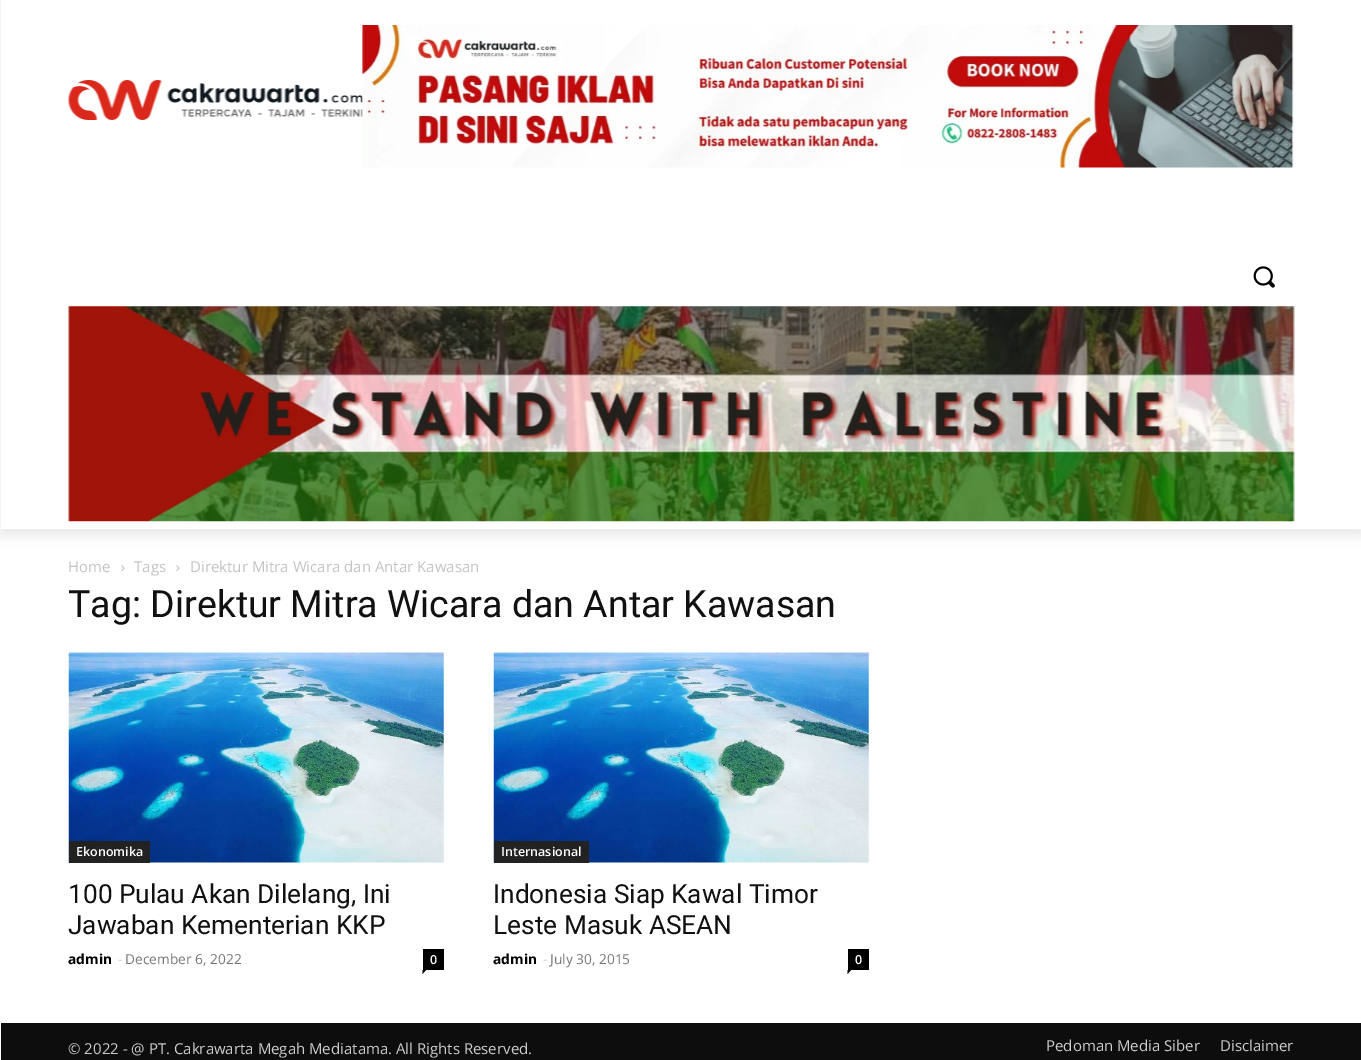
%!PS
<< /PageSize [1361 1060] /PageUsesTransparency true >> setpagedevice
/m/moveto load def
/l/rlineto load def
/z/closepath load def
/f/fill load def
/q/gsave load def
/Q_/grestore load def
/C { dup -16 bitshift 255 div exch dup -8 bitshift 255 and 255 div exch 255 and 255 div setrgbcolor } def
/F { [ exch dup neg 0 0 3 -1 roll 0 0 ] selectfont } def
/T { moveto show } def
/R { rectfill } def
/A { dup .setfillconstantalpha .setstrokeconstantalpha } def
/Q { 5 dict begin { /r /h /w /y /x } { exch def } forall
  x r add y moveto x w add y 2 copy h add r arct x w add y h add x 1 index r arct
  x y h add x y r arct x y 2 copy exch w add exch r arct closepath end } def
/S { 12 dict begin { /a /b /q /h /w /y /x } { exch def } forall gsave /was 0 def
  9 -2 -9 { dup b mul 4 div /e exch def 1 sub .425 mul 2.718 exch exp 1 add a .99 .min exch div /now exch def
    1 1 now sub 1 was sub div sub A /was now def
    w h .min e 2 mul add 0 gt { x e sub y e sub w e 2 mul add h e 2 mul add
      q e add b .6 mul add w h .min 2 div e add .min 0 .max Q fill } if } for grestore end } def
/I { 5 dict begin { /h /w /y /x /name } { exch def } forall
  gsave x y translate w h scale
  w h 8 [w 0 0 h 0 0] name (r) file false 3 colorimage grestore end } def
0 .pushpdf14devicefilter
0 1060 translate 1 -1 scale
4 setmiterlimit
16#FFFFFF C
0 0 1361 1060 R
(1.rgb) 68 80 295 40 I
(2.rgb) 362 25 932 143 I
(4.rgb) 68 306 1227 216 I
q
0 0 m 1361 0 l 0 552 l -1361 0 l z 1 -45 m 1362 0 l 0 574 l -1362 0 l z eoclip newpath
16#000000 C
1 -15 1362 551 0 5 .08 S
Q_
(3.rgb) 1253 266 22 22 I
/OpenSans-Regular 15 F
16#C3C3C3 C
(Home) 68 572 T
(5.rgb) 121 565 4 6 I
(Tags) 134 572 T
(5.rgb) 176 565 4 6 I
(Direktur Mitra Wicara dan Antar Kawasan) 190 572 T
/Roboto-Regular 37.5 F
16#111111 C
(Tag: Direktur Mitra Wicara dan Antar Kawasan) 68 617 T
(6.rgb) 68 652 376 211 I
16#222222 C
69 841 81 22 R
/OpenSans-SemiBold 12.5 F
16#FFFFFF C
(Ekonomika) 76 856 T
/Roboto-Regular 26.25 F
16#111111 C
(100 Pulau Akan Dilelang, Ini) 68 903 T
(Jawaban Kementerian KKP) 68 934 T
/OpenSans-Bold 13.75 F
16#000000 C
(admin) 68 964 T
/OpenSans-Regular 13.75 F
16#CCCCCC C
(-) 118 964 T
16#767676 C
(December 6, 2022) 125 964 T
16#000000 C
423 949 21 21 R
/OpenSans-SemiBold 12.5 F
16#FFFFFF C
(0) 430 964 T
16#000000 C
422.5 970 m 3.5 0 l -3.5 4 l z f
(7.rgb) 493 652 376 211 I
16#222222 C
494 841 95 22 R
16#FFFFFF C
(Internasional) 501 856 T
/Roboto-Regular 26.25 F
16#111111 C
(Indonesia Siap Kawal Timor) 493 903 T
(Leste Masuk ASEAN) 493 934 T
/OpenSans-Bold 13.75 F
16#000000 C
(admin) 493 964 T
/OpenSans-Regular 13.75 F
16#CCCCCC C
(-) 543 964 T
16#767676 C
(July 30, 2015) 550 964 T
16#000000 C
848 949 21 21 R
/OpenSans-SemiBold 12.5 F
16#FFFFFF C
(0) 855 964 T
16#000000 C
847.5 970 m 3.5 0 l -3.5 4 l z f
16#0D0D0D C
1 1023 1360 37 R
/OpenSans-Regular 15 F
16#CCCCCC C
(© 2022 - @ PT. Cakrawarta Megah Mediatama. All Rights Reserved.) 68 1054 T
(Pedoman Media Siber) 1046 1051 T
(Disclaimer) 1220 1051 T
.poppdf14devicefilter showpage
